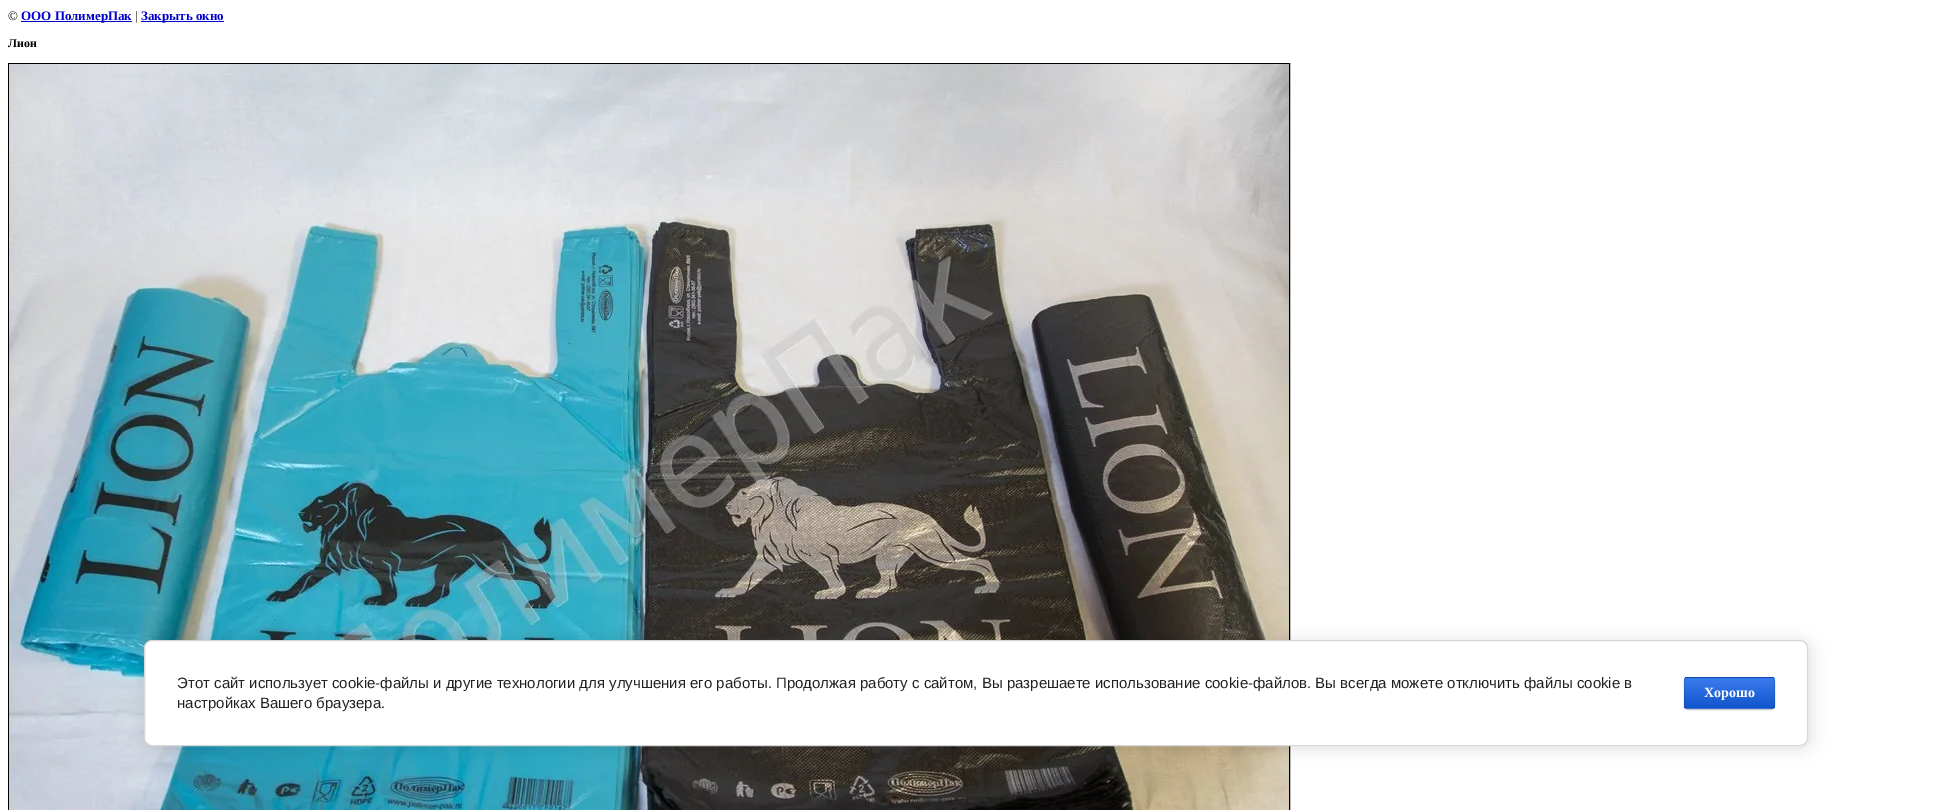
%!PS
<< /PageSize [1952 810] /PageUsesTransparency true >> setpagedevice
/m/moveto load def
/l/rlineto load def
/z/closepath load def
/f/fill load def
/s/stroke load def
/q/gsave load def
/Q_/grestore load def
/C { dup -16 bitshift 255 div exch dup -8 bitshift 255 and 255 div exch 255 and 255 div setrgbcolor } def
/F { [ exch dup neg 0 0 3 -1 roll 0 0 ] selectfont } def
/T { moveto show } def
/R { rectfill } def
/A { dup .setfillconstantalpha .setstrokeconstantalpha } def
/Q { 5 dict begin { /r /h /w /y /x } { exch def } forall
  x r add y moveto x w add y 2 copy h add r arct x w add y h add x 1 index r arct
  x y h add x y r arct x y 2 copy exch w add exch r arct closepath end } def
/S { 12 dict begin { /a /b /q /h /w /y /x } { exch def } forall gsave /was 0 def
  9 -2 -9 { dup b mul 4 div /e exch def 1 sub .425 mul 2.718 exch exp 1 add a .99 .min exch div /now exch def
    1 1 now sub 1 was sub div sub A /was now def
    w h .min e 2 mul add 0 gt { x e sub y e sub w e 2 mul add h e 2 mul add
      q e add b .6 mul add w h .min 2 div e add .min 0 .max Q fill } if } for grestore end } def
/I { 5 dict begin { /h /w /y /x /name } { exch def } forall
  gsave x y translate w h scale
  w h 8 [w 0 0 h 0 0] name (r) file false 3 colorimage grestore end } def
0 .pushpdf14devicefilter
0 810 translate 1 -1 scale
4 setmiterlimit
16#FFFFFF C
0 0 1952 810 R
/LiberationSerif-Regular 13 F
16#000000 C
(©) 8 20 T
16#0000CC C
21 21 111 1 R
/LiberationSerif-Bold 13 F
(ООО ПолимерПак) 21 20 T
/LiberationSerif-Regular 13 F
16#000000 C
(|) 135 20 T
16#0000CC C
141 21 83 1 R
/LiberationSerif-Bold 13 F
(Закрыть окно) 141 20 T
/LiberationSerif-Bold 12 F
16#000000 C
(Лион) 8 47 T
8.5 63.5 1281 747 rectstroke
(1.rgb) 9 64 1280 746 I
146 642 1664 106 8 9 .14 S
16#FFFFFF C
144.5 640.5 1663 105 7.5 Q q f Q_
16#D6D6D6 C
s
/LiberationSans-Regular 15 F
16#212121 C
(Этот сайт использует cookie-файлы и другие технологии для улучшения его работы. Продолжая работу с сайтом, Вы разрешаете использование cookie-файлов. Вы всегда можете отключить файлы cookie в) 177 688 T
(настройках Вашего браузера.) 177 708 T
16#000000 C
1684 678 91 32 4 .5 .2 S
q
1684 677 91 32 4 Q clip newpath
q 1684 677 m 91 0 l 0 1 l -91 0 l z clip newpath
<< /ShadingType 2 /ColorSpace /DeviceRGB /Coords [1730 648 1730 678] /Extend [true true] /Function << /FunctionType 2 /Domain [0 1] /C0 [.231 .486 .937] /C1 [.067 .333 .8] /N 1 >> >> shfill Q_
q 1684 678 m 91 0 l 0 30 l -91 0 l z clip newpath
<< /ShadingType 2 /ColorSpace /DeviceRGB /Coords [1730 678 1730 708] /Extend [true true] /Function << /FunctionType 2 /Domain [0 1] /C0 [.231 .486 .937] /C1 [.067 .333 .8] /N 1 >> >> shfill Q_
q 1684 708 m 91 0 l 0 1 l -91 0 l z clip newpath
<< /ShadingType 2 /ColorSpace /DeviceRGB /Coords [1730 708 1730 738] /Extend [true true] /Function << /FunctionType 2 /Domain [0 1] /C0 [.231 .486 .937] /C1 [.067 .333 .8] /N 1 >> >> shfill Q_
Q_
0.1 A
1684.5 677.5 90 31 3.5 Q s
/LiberationSerif-Bold 14 F
1 A
16#FFFFFF C
(Хорошо) 1704 697 T
.poppdf14devicefilter showpage
